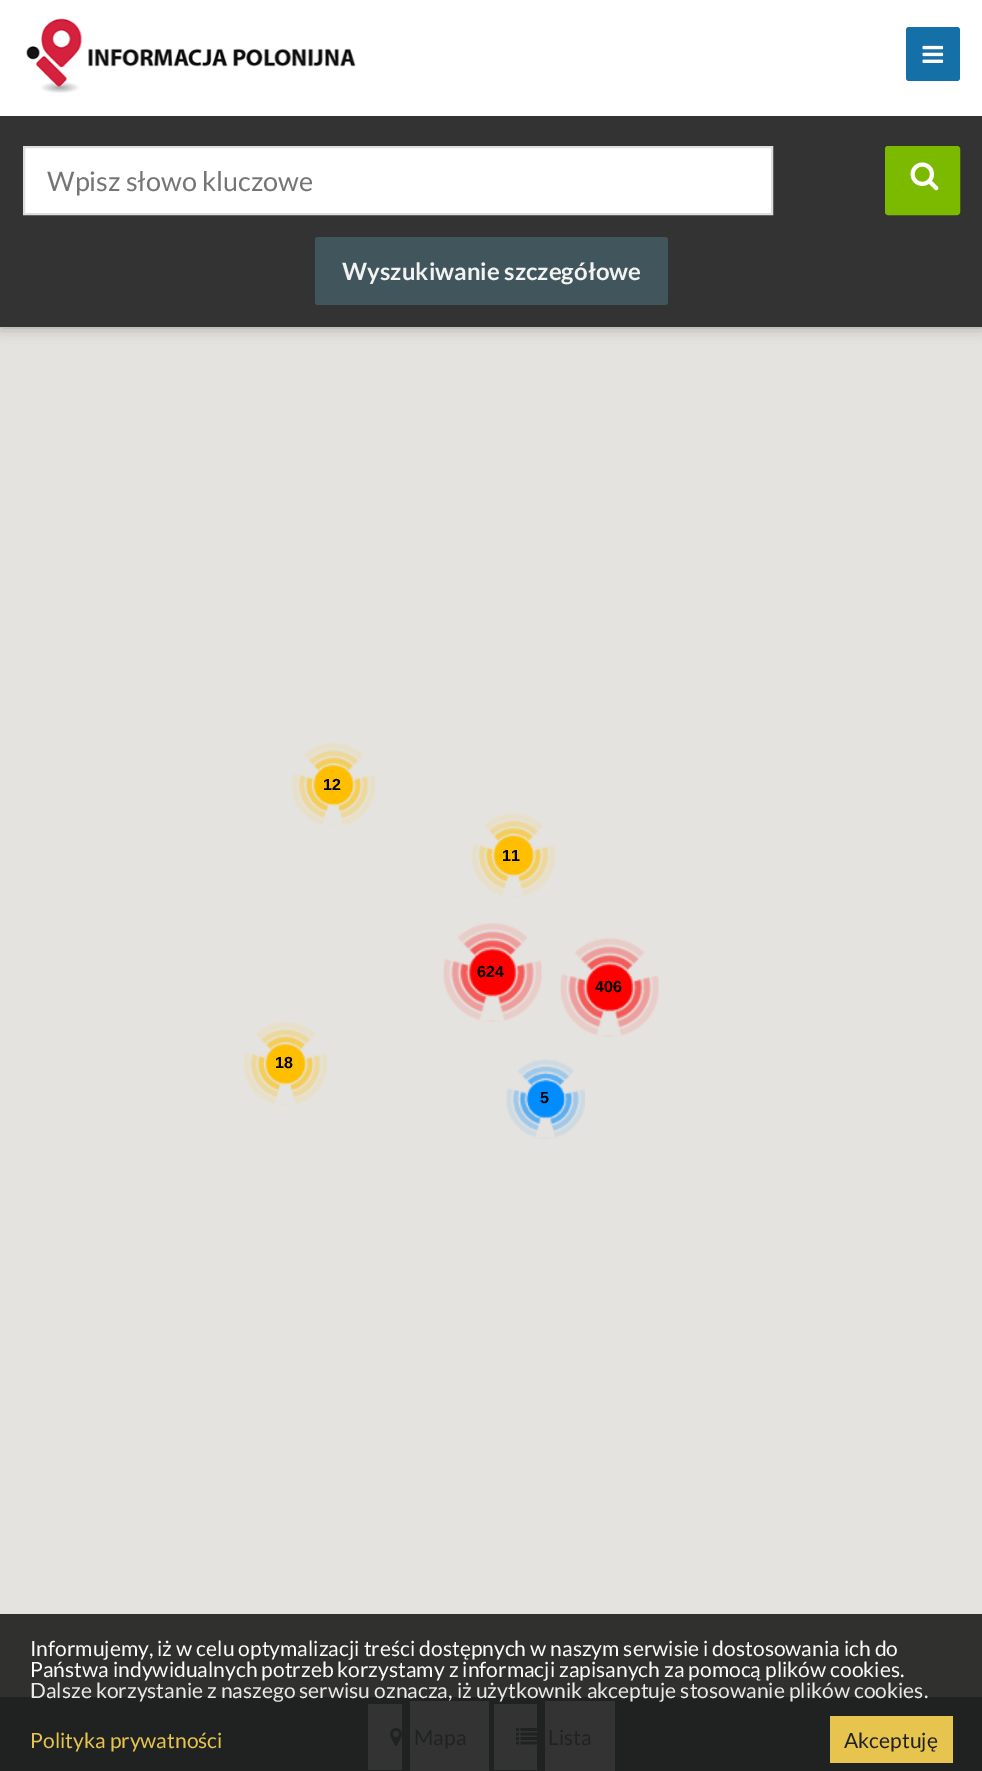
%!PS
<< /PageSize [982 1771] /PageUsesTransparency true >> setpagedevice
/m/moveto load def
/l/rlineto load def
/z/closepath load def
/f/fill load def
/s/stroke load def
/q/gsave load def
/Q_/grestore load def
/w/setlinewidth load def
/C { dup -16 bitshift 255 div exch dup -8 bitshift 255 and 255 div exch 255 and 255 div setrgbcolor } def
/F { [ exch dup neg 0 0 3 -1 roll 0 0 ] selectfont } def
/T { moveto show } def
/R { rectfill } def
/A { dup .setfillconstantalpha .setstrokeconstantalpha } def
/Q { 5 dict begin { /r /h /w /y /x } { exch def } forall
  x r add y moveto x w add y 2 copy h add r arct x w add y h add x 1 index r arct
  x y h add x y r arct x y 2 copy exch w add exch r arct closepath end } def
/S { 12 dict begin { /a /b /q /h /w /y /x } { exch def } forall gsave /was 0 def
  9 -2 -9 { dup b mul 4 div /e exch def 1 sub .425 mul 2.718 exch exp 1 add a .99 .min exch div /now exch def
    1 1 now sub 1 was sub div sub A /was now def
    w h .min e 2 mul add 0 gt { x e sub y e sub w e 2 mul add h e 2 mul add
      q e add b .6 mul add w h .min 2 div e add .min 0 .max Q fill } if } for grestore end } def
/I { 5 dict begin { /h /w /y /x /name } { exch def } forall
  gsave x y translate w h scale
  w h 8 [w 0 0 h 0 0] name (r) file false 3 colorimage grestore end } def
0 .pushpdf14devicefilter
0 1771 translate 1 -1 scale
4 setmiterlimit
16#E5E3DF C
0 0 982 1771 R
16#000000 C
0 0 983 327 0 7.5 .3 S
16#FFFFFF C
0 0 982 116 R
(1.rgb) 26 18 330 75 I
16#1470A6 C
906 27 54 54 3 Q f
(2.rgb) 922 45 22 18 I
16#333333 C
0 116 982 211 R
16#FFFFFF C
24 147 m 748 0 l 0 67 l -748 0 l z q f Q_
16#DEDEDE C
2 w
s
/Lato-Regular 27 F
16#757575 C
(Wpisz słowo kluczowe) 47 191 T
16#7CBA00 C
886 147 73 67 2 Q q f Q_
s
(3.rgb) 910 162 29 29 I
16#40555C C
315 237 353 68 3 Q f
/Lato-Bold 24 F
16#F2F2F2 C
(Wyszukiwanie szczegółowe) 342 280 T
16#30302F C
0 1614 982 83 R
(4.rgb) 291 743 84 84 I
/LiberationSans-Bold 16 F
16#000000 C
(12) 323 790 T
(5.rgb) 471 813 84 84 I
(11) 502 861 T
(6.rgb) 443 922 99 100 I
(624) 477 977 T
(7.rgb) 560 937 99 100 I
(406) 595 992 T
(8.rgb) 243 1021 84 85 I
(18) 275 1068 T
(9.rgb) 506 1059 79 80 I
(5) 540 1103 T
16#202222 C
0 1697 982 74 R
16#333333 C
368 1704 34 66 R
410 1701 79 70 R
(10.rgb) 390 1728 12 18 I
/Lato-Regular 21 F
16#202222 C
(Mapa) 414 1745 T
16#333333 C
494 1704 43 66 R
545 1701 70 70 R
(11.rgb) 516 1728 21 17 I
16#202222 C
(Lista) 548 1745 T
16#FCFCFC C
(Informujemy, iż w celu optymalizacji treści dostępnych w naszym serwisie i dostosowania ich do) 30 1656 T
(Państwa indywidualnych potrzeb korzystamy z informacji zapisanych za pomocą plików cookies.) 30 1677 T
16#EAEAEA C
(Dalsze korzystanie z naszego serwisu oznacza, iż użytkownik akceptuje stosowanie plików cookies.) 30 1698 T
16#E7C44E C
(Polityka prywatności) 30 1748 T
830 1716 123 47 R
16#202222 C
(Akceptuję) 844 1748 T
.poppdf14devicefilter showpage
